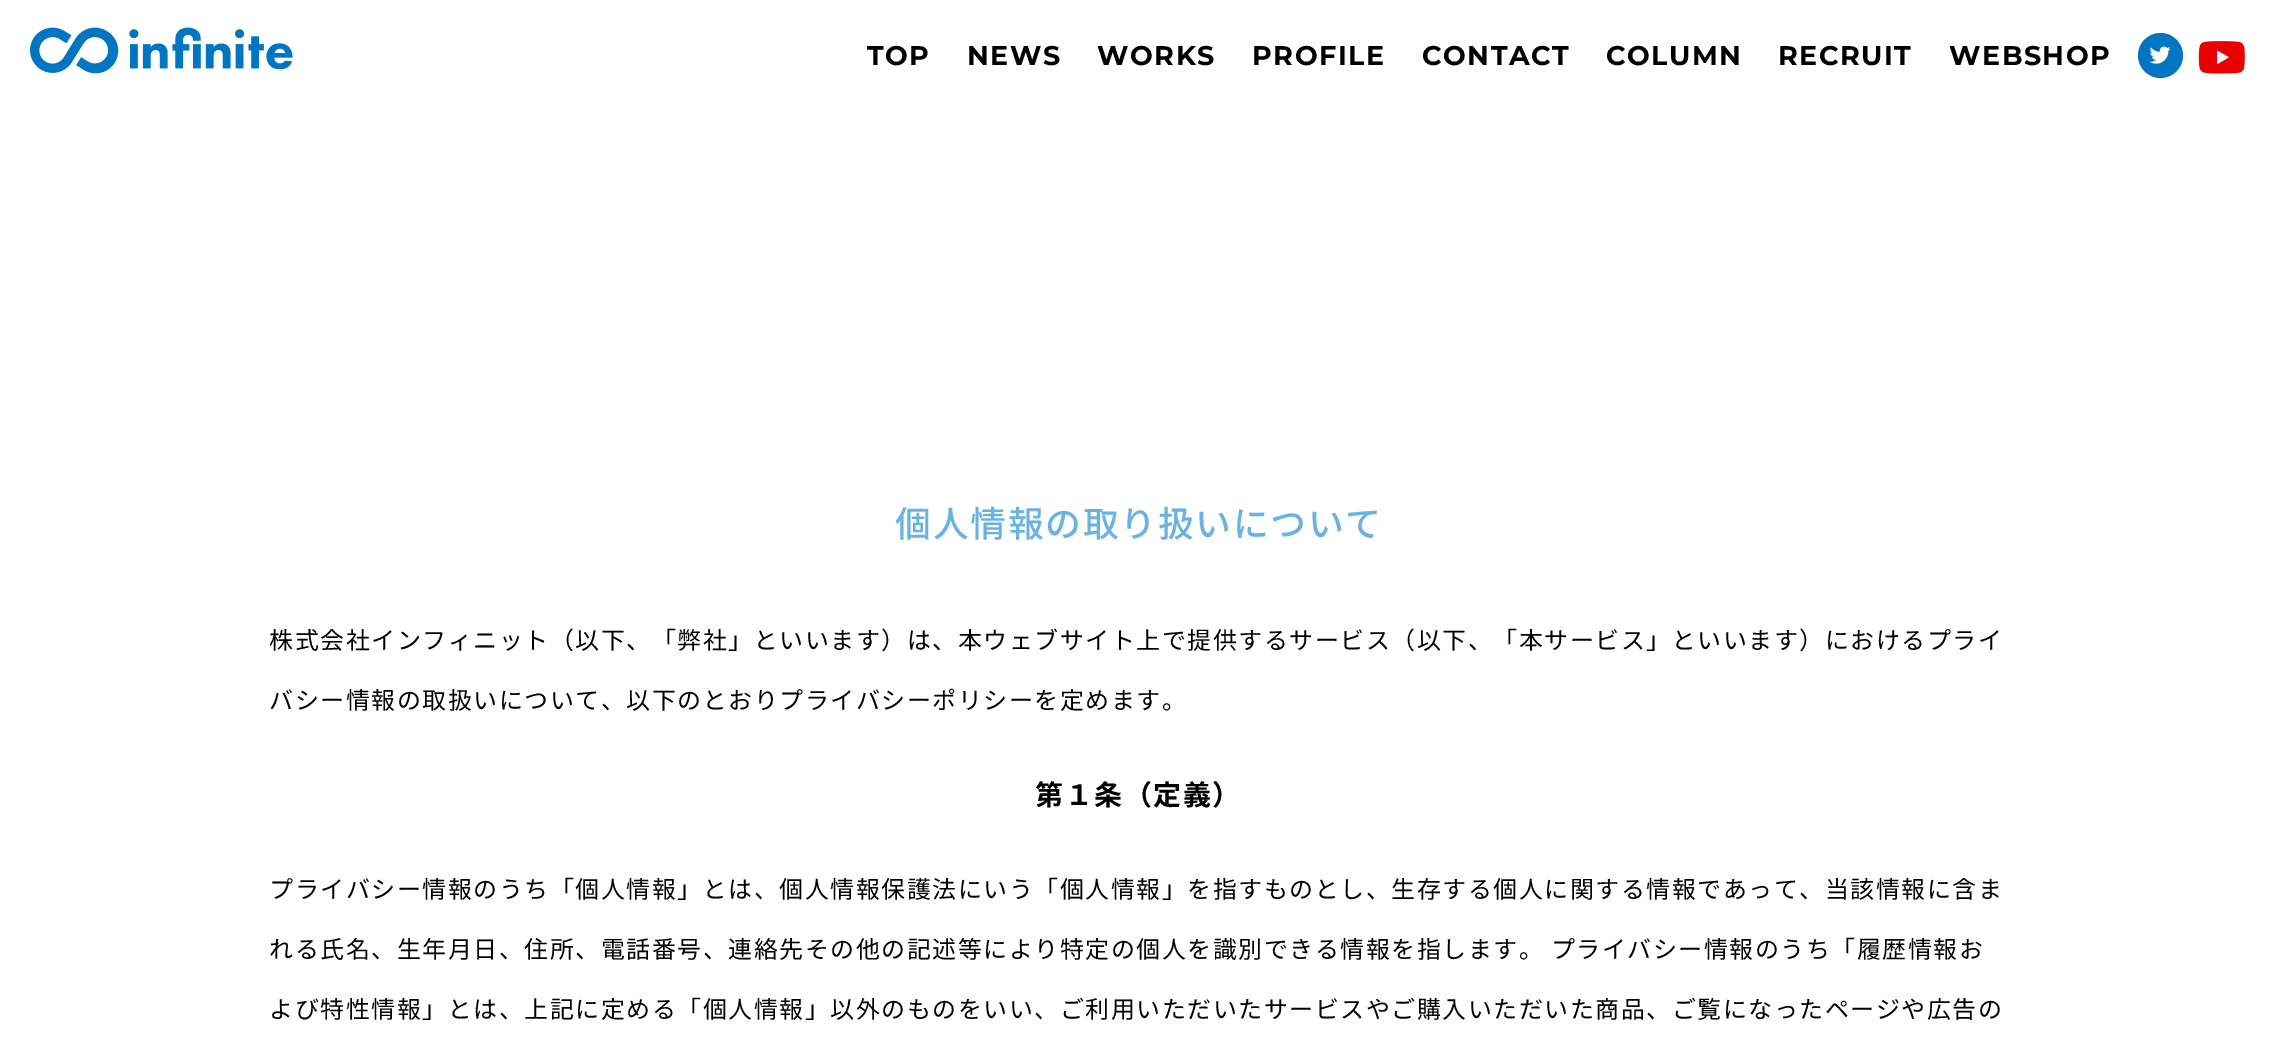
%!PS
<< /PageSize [2276 1058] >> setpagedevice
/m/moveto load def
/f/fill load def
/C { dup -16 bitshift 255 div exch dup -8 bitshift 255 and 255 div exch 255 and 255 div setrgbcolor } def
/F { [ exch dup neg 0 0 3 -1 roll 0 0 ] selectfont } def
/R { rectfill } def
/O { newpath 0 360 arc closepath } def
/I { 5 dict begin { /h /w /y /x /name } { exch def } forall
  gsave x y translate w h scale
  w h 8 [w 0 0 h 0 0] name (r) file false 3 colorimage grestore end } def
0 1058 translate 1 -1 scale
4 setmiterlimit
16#FFFFFF C
0 0 2276 1058 R
(1.rgb) 30 27 263 47 I
/Montserrat-Bold 27 F
16#000000 C
867 65 m 1.5 0 (TOP) ashow
967 65 m 1.5 0 (NEWS) ashow
1097 65 m 1.5 0 (WORKS) ashow
1252 65 m 1.5 0 (PROFILE) ashow
1422 65 m 1.5 0 (CONTACT) ashow
1606 65 m 1.5 0 (COLUMN) ashow
1778 65 m 1.5 0 (RECRUIT) ashow
1949 65 m 1.5 0 (WEBSHOP) ashow
16#0075C1 C
2160.5 55.5 22.5 O f
(2.rgb) 2149 46 22 18 I
(3.rgb) 2198 41 47 33 I
/NotoSansJP-Medium 36 F
16#6AB2E1 C
895 537 m 1.5 0 (個人情報の取り扱いについて) ashow
/NotoSansJP-Regular 24 F
16#000000 C
269 649 m 1.5 0 (株式会社インフィニット（以下、「弊社」といいます）は、本ウェブサイト上で提供するサービス（以下、「本サービス」といいます）におけるプライ) ashow
269 709 m 1.5 0 (バシー情報の取扱いについて、以下のとおりプライバシーポリシーを定めます。) ashow
/NotoSansJP-Bold 28 F
1035 805 m 1.5 0 (第１条（定義）) ashow
/NotoSansJP-Regular 24 F
269 898 m 1.5 0 (プライバシー情報のうち「個人情報」とは、個人情報保護法にいう「個人情報」を指すものとし、生存する個人に関する情報であって、当該情報に含ま) ashow
269 958 m 1.5 0 (れる氏名、生年月日、住所、電話番号、連絡先その他の記述等により特定の個人を識別できる情報を指します。 プライバシー情報のうち「履歴情報お) ashow
269 1018 m 1.5 0 (よび特性情報」とは、上記に定める「個人情報」以外のものをいい、ご利用いただいたサービスやご購入いただいた商品、ご覧になったページや広告の) ashow
showpage
